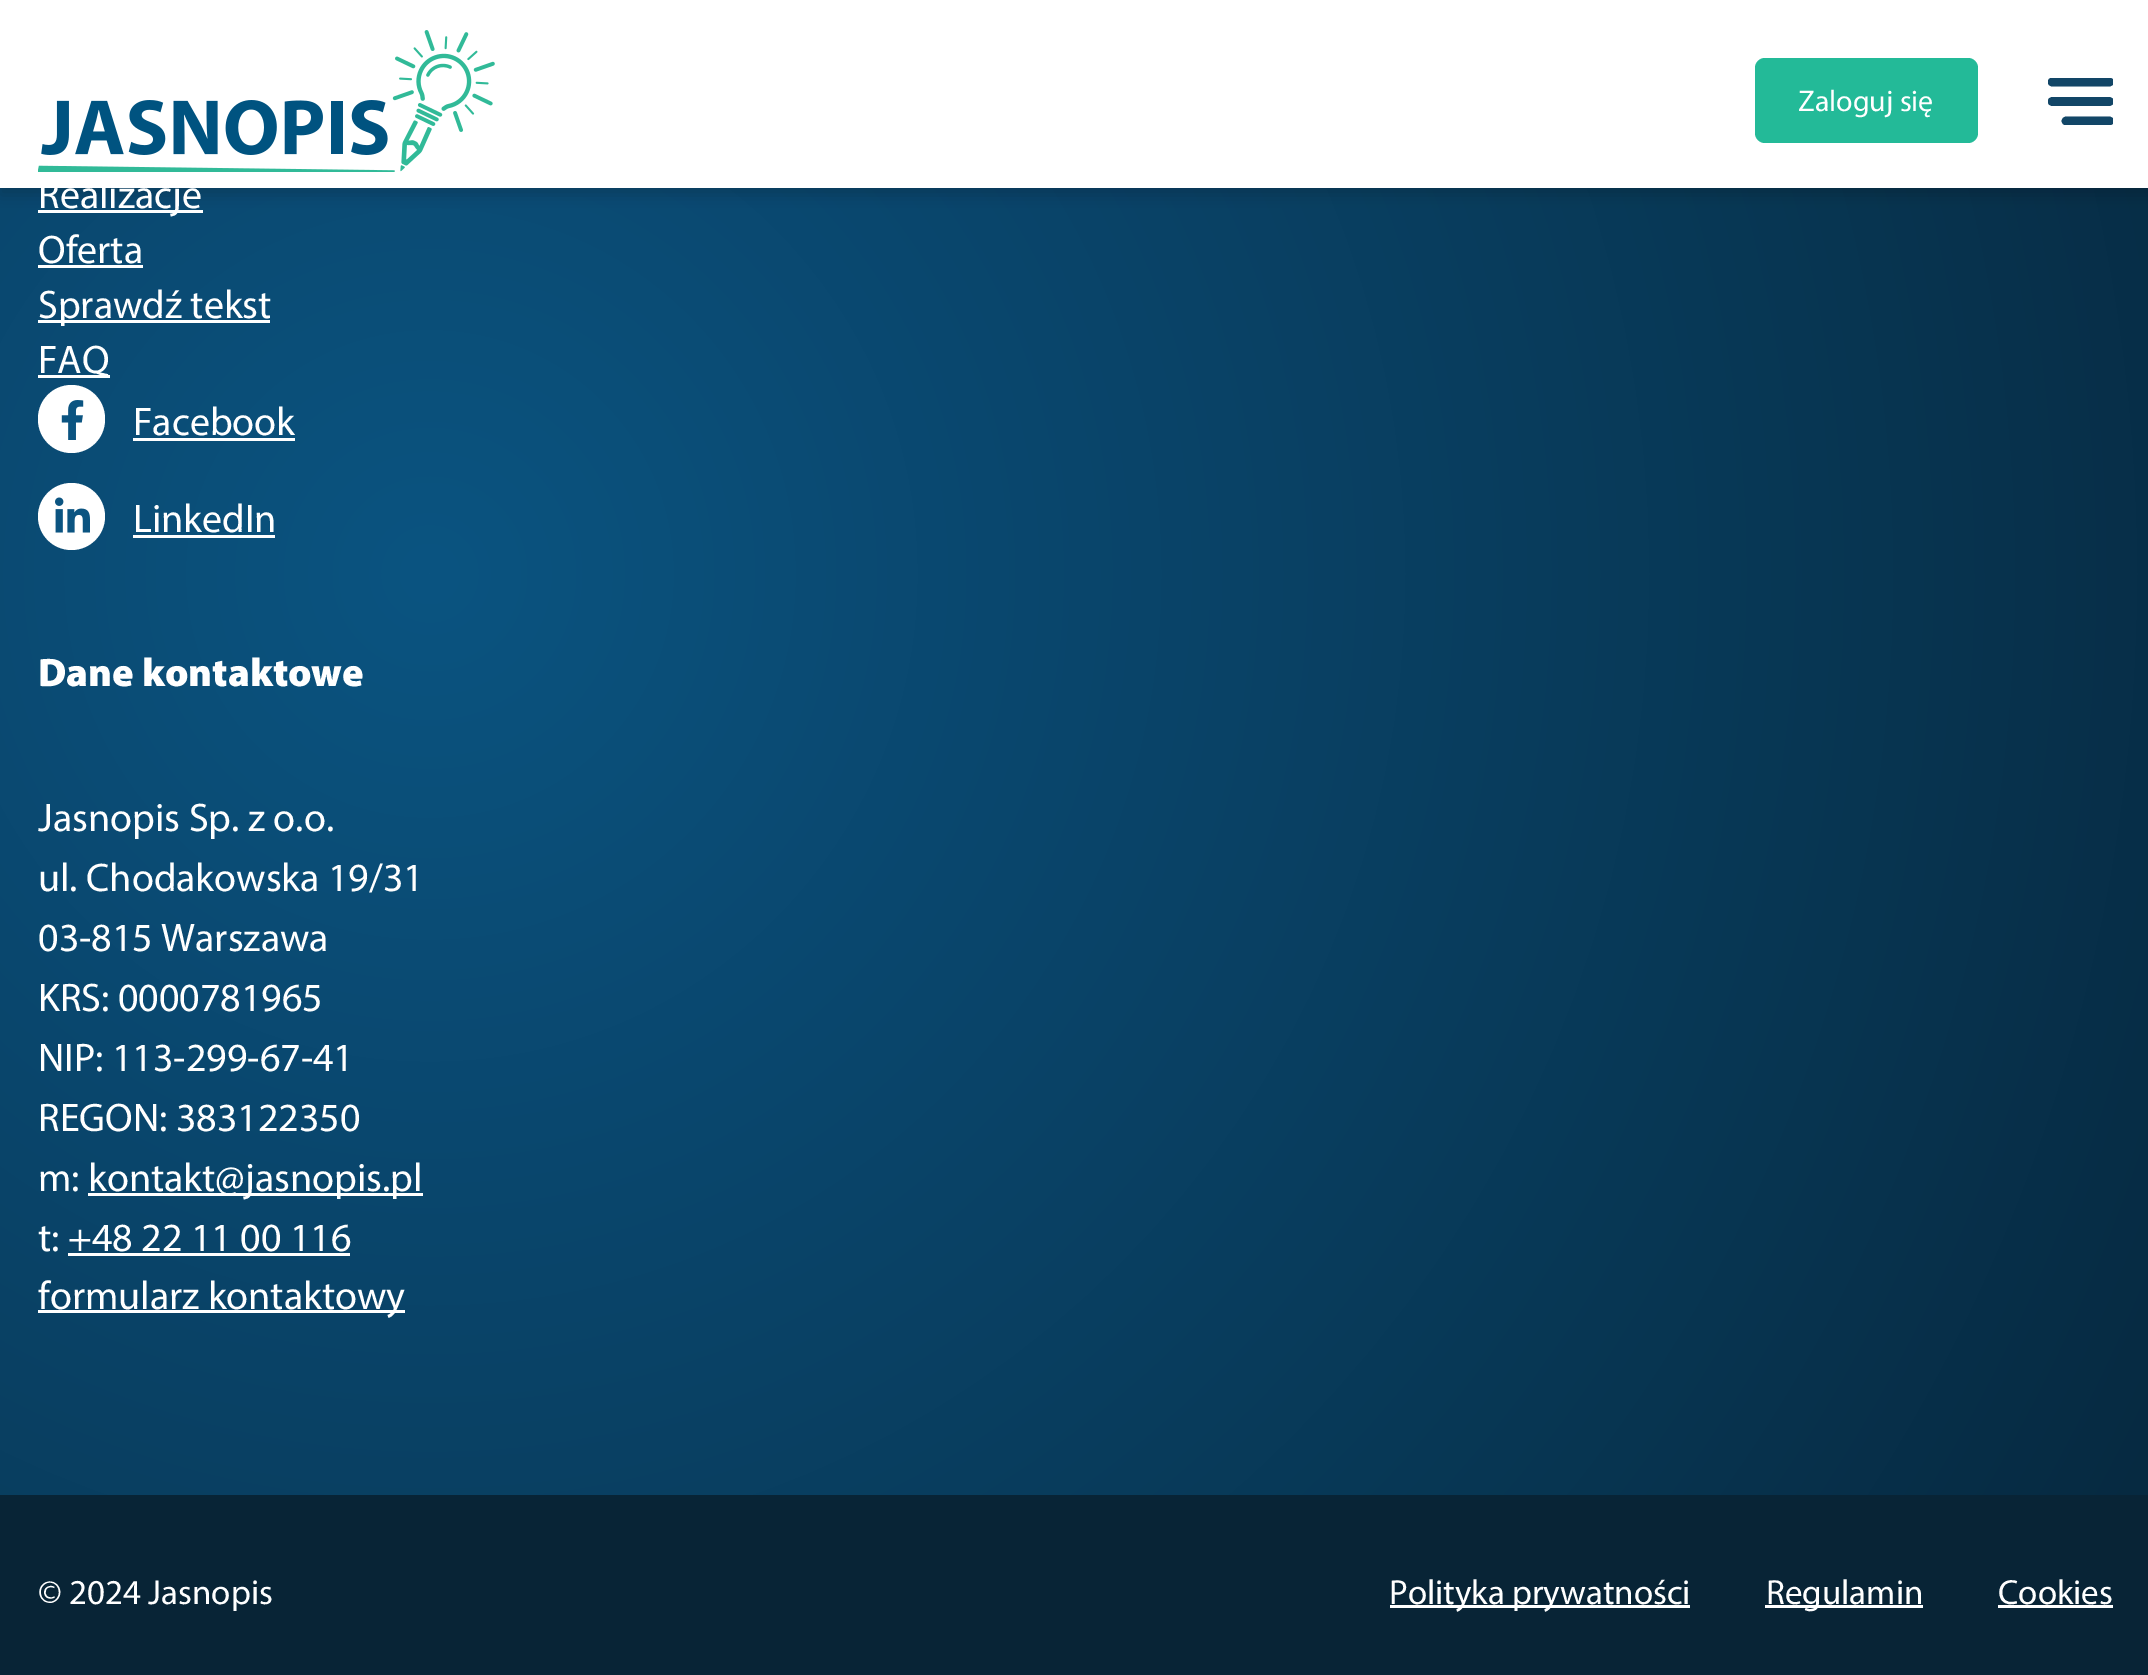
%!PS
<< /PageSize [2148 1675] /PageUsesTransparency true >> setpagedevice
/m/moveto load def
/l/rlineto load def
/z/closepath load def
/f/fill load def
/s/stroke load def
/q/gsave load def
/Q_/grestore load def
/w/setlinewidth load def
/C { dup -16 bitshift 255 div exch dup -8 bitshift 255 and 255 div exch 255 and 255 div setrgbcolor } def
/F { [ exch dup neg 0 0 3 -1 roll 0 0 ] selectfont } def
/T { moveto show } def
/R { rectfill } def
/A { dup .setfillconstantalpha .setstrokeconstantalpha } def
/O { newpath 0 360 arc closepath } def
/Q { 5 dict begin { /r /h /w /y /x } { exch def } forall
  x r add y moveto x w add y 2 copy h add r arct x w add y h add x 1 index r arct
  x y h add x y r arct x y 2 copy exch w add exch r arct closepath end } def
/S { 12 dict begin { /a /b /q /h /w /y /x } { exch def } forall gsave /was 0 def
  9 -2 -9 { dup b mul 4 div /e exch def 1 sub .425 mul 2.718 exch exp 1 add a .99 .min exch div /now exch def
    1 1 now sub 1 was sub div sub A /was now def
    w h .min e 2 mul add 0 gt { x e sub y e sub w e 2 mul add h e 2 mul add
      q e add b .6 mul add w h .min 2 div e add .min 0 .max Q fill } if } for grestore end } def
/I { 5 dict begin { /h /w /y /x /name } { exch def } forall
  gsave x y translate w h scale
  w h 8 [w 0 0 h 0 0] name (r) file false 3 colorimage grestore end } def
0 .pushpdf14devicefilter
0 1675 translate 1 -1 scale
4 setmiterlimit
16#FFFFFF C
0 0 2148 1675 R
q 0 188 m 2148 0 l 0 1307 l -2148 0 l z clip newpath 430 574 translate 1951 1951 scale
<< /ShadingType 3 /ColorSpace /DeviceRGB /Coords [0 0 0 0 0 1] /Extend [true true] /Function << /FunctionType 2 /Domain [0 1] /C0 [.043 .329 .506] /C1 [.024 .165 .255] /N 1 >> >> shfill Q_
38 210 165 3 R
16#000000 C
0 8 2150 187 0 7.5 .16 S
16#FFFFFF C
0 0 2148 188 R
(1.rgb) 38 30 457 142 I
16#23BA98 C
1755 58 223 85 10 Q f
/Myriad-Regular 30 F
16#FFFFFF C
(Zaloguj się) 1798 111 T
q
2048 78 65 47 rectclip
16#124667 C
8.7 w
1 setlinecap
2109.5 82 m -57.5 0 l s
2109.5 121 m -43.5 0 l s
2109.5 101.5 m -57.5 0 l s
Q_
/Myriad-Regular 40 F
(Realizacje) 38 208 T
(Oferta) 38 263 T
38 265 105 3 R
38 320 232 3 R
(Sprawdź tekst) 38 318 T
38 375 72 3 R
(FAQ) 38 373 T
38 385 67 68 33.5 Q f
(2.rgb) 61 400 23 40 I
(Facebook) 133 435 T
133 438 162 3 R
71.5 516.5 33.5 O f
(3.rgb) 55 497 35 36 I
(LinkedIn) 133 532 T
133 535 142 3 R
/Myriad-Black 40 F
(Dane kontaktowe) 38 686 T
/Myriad-Regular 40 F
(Jasnopis Sp. z o.o.) 38 831 T
(ul. Chodakowska 19/31) 38 891 T
(03-815 Warszawa) 38 951 T
(KRS: 0000781965) 38 1011 T
(NIP: 113-299-67-41) 38 1071 T
(REGON: 383122350) 38 1131 T
(m:) 38 1191 T
88 1193 335 3 R
(kontakt@jasnopis.pl) 88 1191 T
(t: +48 22 11 00 116) 38 1251 T
68 1253 282 3 R
38 1310 367 3 R
(formularz kontaktowy) 38 1309 T
16#082436 C
0 1495 2148 180 R
/Myriad-Regular 35 F
16#FFFFFF C
(© 2024 Jasnopis) 38 1604 T
1390 1605 300 3 R
(Polityka prywatności) 1389 1604 T
1765 1605 158 3 R
(Regulamin) 1766 1604 T
(Cookies) 1998 1604 T
1998 1605 115 3 R
.poppdf14devicefilter showpage
